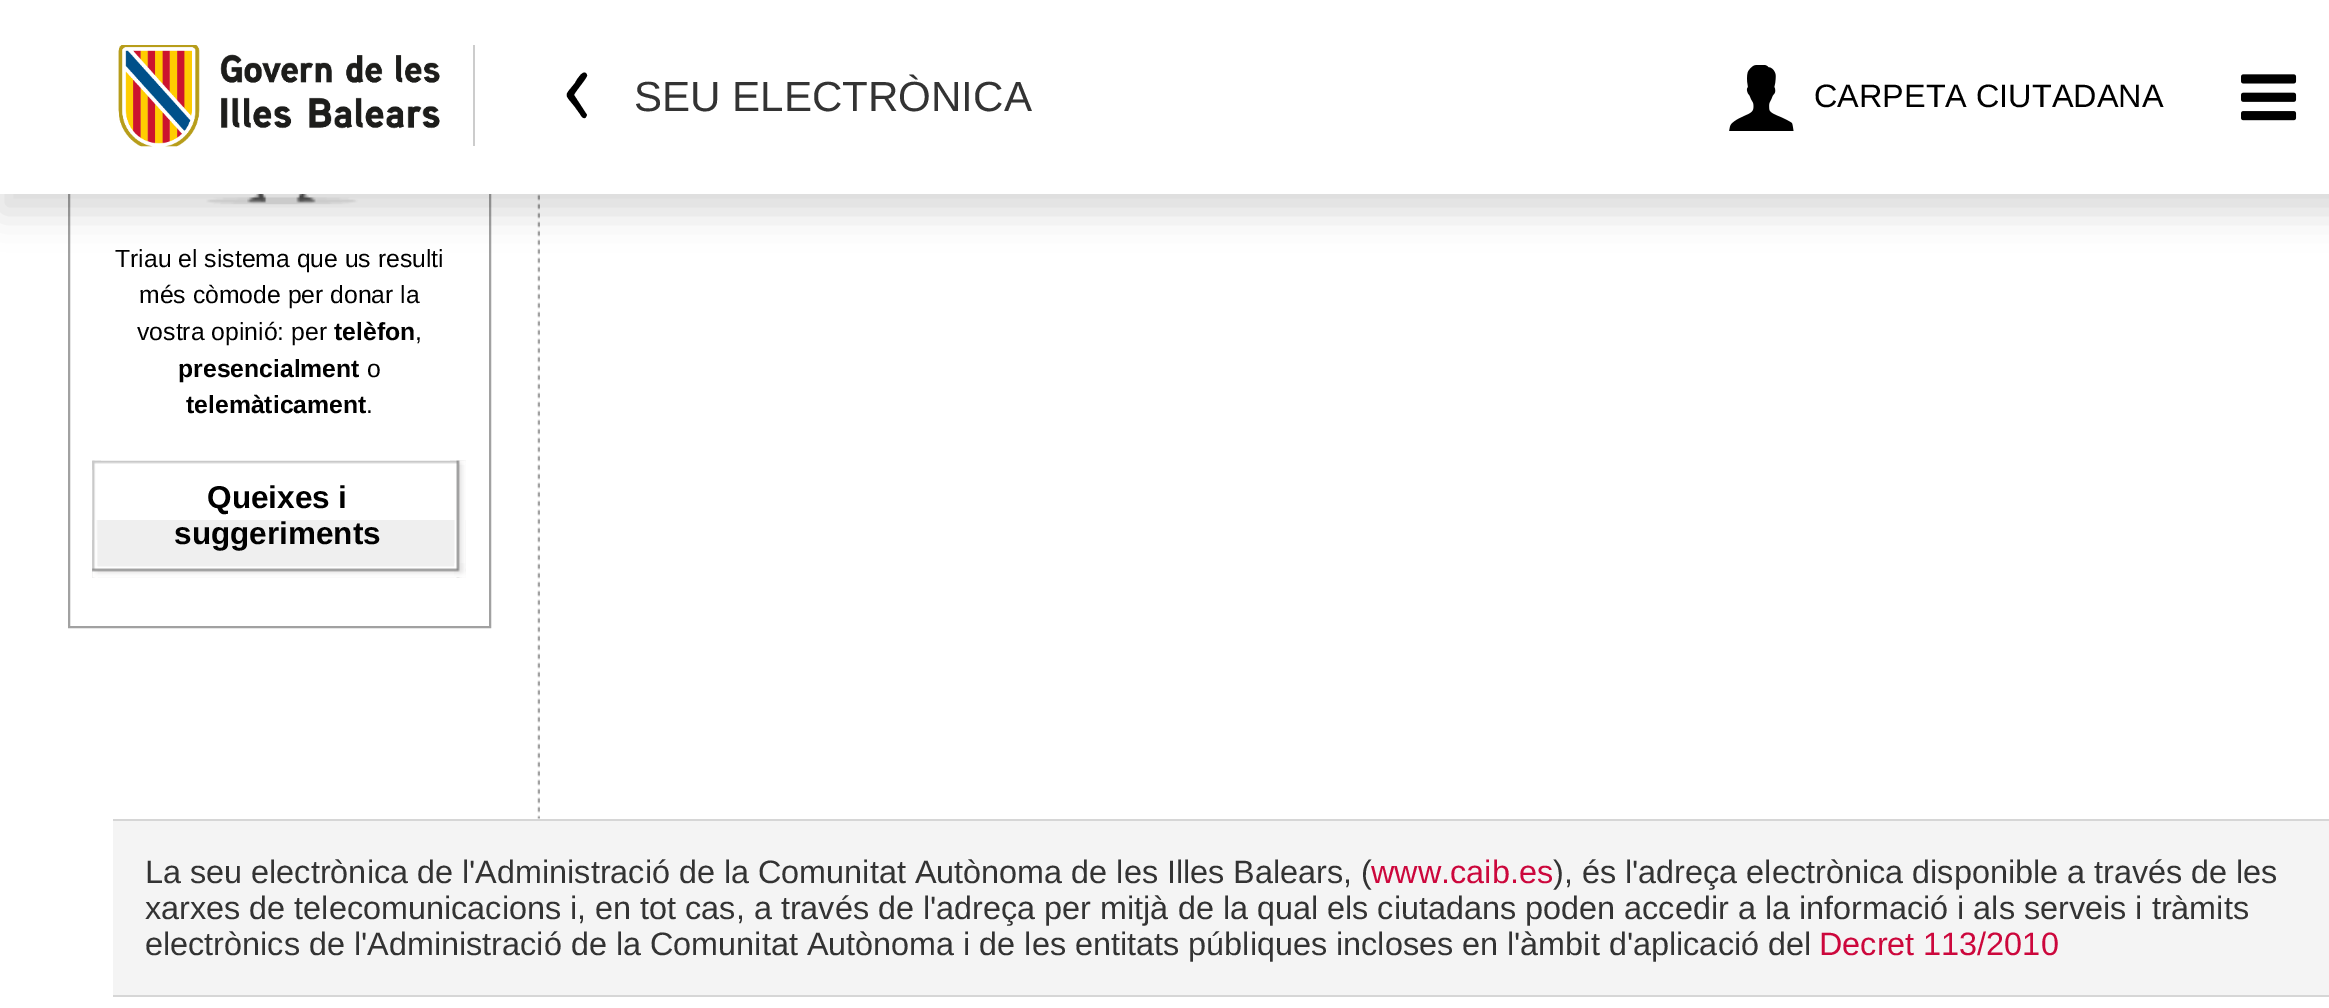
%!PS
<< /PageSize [2329 1008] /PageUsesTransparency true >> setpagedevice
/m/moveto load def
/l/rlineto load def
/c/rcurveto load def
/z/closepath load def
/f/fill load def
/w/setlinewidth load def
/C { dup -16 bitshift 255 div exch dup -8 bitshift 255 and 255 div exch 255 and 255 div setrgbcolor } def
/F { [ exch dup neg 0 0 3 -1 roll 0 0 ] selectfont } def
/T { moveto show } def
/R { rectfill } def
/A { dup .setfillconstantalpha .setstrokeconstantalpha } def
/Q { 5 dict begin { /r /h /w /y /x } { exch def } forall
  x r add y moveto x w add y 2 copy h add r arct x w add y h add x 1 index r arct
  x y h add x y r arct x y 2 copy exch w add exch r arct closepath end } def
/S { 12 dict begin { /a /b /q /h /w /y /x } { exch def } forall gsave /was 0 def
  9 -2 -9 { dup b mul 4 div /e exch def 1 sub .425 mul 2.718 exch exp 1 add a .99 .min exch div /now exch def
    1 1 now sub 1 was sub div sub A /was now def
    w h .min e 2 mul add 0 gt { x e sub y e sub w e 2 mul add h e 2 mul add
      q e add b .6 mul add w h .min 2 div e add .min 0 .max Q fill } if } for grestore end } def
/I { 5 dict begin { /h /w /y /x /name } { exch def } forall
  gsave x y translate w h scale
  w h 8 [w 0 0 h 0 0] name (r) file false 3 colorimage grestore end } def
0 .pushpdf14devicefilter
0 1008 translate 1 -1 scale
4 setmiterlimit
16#FFFFFF C
0 0 2329 1008 R
(4.rgb) 537 194 3 625 I
16#A1A1A1 C
2 w
69 96 421 531 rectstroke
(5.rgb) 206 194 153 11 I
16#000000 C
0 18 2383 194 0 18 .15 S
16#FFFFFF C
0 0 2329 194 R
16#CCCCCC C
473 45 2 101 R
(1.rgb) 118 45 322 102 I
16#000000 C
586 117 m 1 -2 l -13 -20 l 0 -2 14 -18 13 -20 c -3 -8 -11 6 -12 8 c -11 14 -11 10 0 24 c 5 7 l 1 2 4 6 6 3 c z f
/LiberationSans-Regular 42.1 F
16#333333 C
(SEU ELECTRÒNICA) 634 111 T
(2.rgb) 1729 65 65 66 I
/LiberationSans-Regular 32.4 F
16#000000 C
(CARPETA CIUTADANA) 1814 107 T
(3.rgb) 2241 74 56 47 I
/LiberationSans-Regular 24.75 F
(Triau el sistema que us resulti) 115 267 T
(més còmode per donar la) 139 303 T
(vostra opinió: per) 137 340 T
/LiberationSans-Bold 24.75 F
(telèfon) 334 340 T
/LiberationSans-Regular 24.75 F
(,) 415 340 T
/LiberationSans-Bold 24.75 F
(presencialment) 178 377 T
/LiberationSans-Regular 24.75 F
(o) 367 377 T
/LiberationSans-Bold 24.75 F
(telemàticament) 186 413 T
/LiberationSans-Regular 24.75 F
(.) 366 413 T
(6.rgb) 92 460 374 4 I
16#EFEFEF C
92 520 374 58 R
(13.rgb) 92 566 374 12 I
(7.rgb) 92 460 6 118 I
(8.rgb) 92 460 9 10 I
(10.rgb) 454 460 12 118 I
(9.rgb) 450 460 16 5 I
/LiberationSans-Bold 31.5 F
16#000000 C
(Queixes i) 207 508 T
(suggeriments) 174 544 T
(11.rgb) 92 540 6 38 I
(12.rgb) 454 563 12 15 I
16#F4F4F4 C
113 821 2216 174 R
16#D6D6D6 C
113 819 2216 2 R
113 995 2216 2 R
/LiberationSans-Regular 32.4 F
16#333333 C
(La seu electrònica de l'Administració de la Comunitat Autònoma de les Illes Balears, \() 145 883 T
16#CC073C C
(www.caib.es) 1371 883 T
16#333333 C
(\), és l'adreça electrònica disponible a través de les) 1553 883 T
(xarxes de telecomunicacions i, en tot cas, a través de l'adreça per mitjà de la qual els ciutadans poden accedir a la informació i als serveis i tràmits) 145 919 T
(electrònics de l'Administració de la Comunitat Autònoma i de les entitats públiques incloses en l'àmbit d'aplicació del) 145 955 T
16#CC073C C
(Decret 113/2010) 1819 955 T
.poppdf14devicefilter showpage
